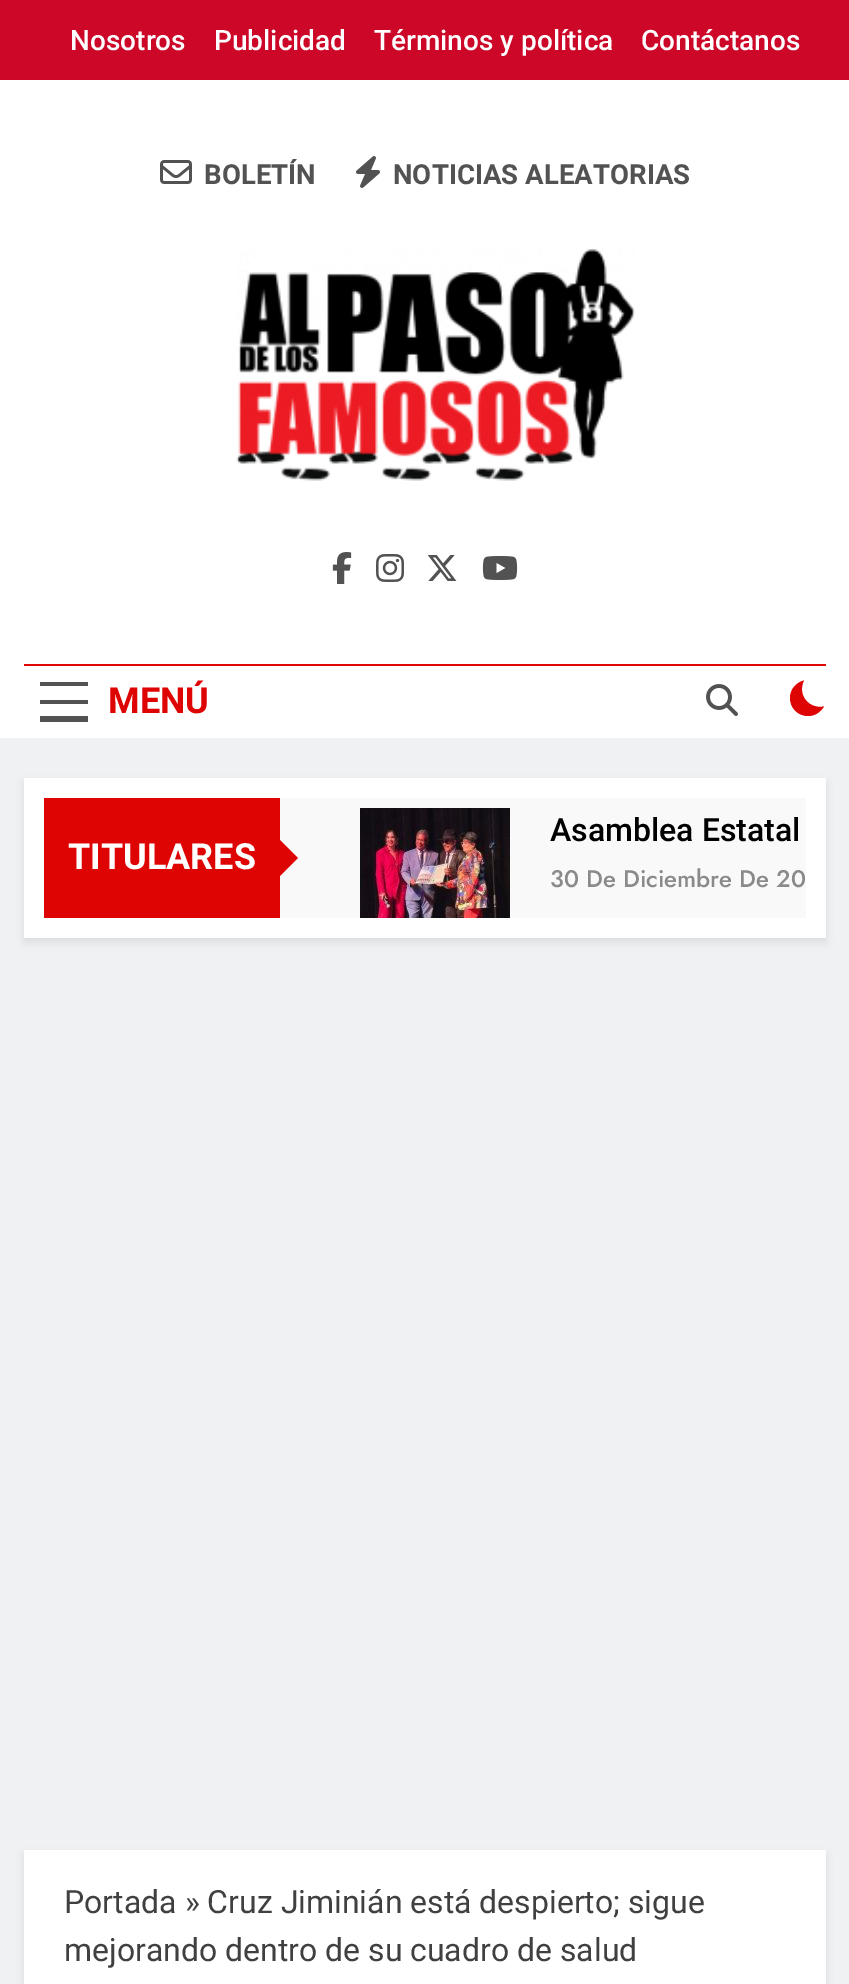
%!PS
<< /PageSize [849 1984] /PageUsesTransparency true >> setpagedevice
/m/moveto load def
/l/rlineto load def
/c/rcurveto load def
/z/closepath load def
/f/fill load def
/C { dup -16 bitshift 255 div exch dup -8 bitshift 255 and 255 div exch 255 and 255 div setrgbcolor } def
/F { [ exch dup neg 0 0 3 -1 roll 0 0 ] selectfont } def
/T { moveto show } def
/R { rectfill } def
/A { dup .setfillconstantalpha .setstrokeconstantalpha } def
/Q { 5 dict begin { /r /h /w /y /x } { exch def } forall
  x r add y moveto x w add y 2 copy h add r arct x w add y h add x 1 index r arct
  x y h add x y r arct x y 2 copy exch w add exch r arct closepath end } def
/S { 12 dict begin { /a /b /q /h /w /y /x } { exch def } forall gsave /was 0 def
  9 -2 -9 { dup b mul 4 div /e exch def 1 sub .425 mul 2.718 exch exp 1 add a .99 .min exch div /now exch def
    1 1 now sub 1 was sub div sub A /was now def
    w h .min e 2 mul add 0 gt { x e sub y e sub w e 2 mul add h e 2 mul add
      q e add b .6 mul add w h .min 2 div e add .min 0 .max Q fill } if } for grestore end } def
/I { 5 dict begin { /h /w /y /x /name } { exch def } forall
  gsave x y translate w h scale
  w h 8 [w 0 0 h 0 0] name (r) file false 3 colorimage grestore end } def
0 .pushpdf14devicefilter
0 1984 translate 1 -1 scale
4 setmiterlimit
16#F0F1F2 C
0 0 849 1984 R
16#CC0728 C
0 0 849 80 R
/Roboto-Medium 28 F
16#FFFFFF C
(Nosotros) 70 50 T
(Publicidad) 214 50 T
(Términos y política) 374 50 T
(Contáctanos) 641 50 T
0 80 849 658 R
(1.rgb) 160 160 32 24 I
/Roboto-Bold 27.6 F
16#525252 C
(BOLETÍN) 204 184 T
(2.rgb) 356 156 24 32 I
(NOTICIAS ALEATORIAS) 393 184 T
(3.rgb) 236 249 399 232 I
(4.rgb) 332 552 20 32 I
(5.rgb) 376 554 28 28 I
(6.rgb) 427 555 30 26 I
(7.rgb) 482 556 36 24 I
16#E30606 C
24 664 802 2 R
16#525252 C
40 682 48 4 R
40 700 48 4 R
40 716 48 6 R
/Roboto-Bold 36 F
16#DE0404 C
(MENÚ) 108 713 T
(8.rgb) 706 684 32 32 I
824 706.5 m -15.5 3 -27 -12 -20 -26 c -8 2 -14 9 -14 17.5 c 0 10 8 18 18 18 c 7 0 12.5 -4 16 -9.5 c z f
16#000000 C
24 782 802 160 0 4 .08 S
16#FFFFFF C
24 778 802 160 R
16#DE0404 C
44 798 236 120 R
16#FFFFFF C
(TITULARES) 68 869 T
16#F9F9F9 C
280 798 526 120 R
16#DE0404 C
278 878 m 0 -40 l 20 20 l z f
(9.rgb) 360 808 150 110 I
/Roboto-Medium 32 F
16#000000 C
(Asamblea Estatal) 550 841 T
/Jost-Medium 24 F
16#8A8A8C C
(30 De Diciembre De 20) 550 887 T
16#000000 C
24 1854 802 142 0 4 .08 S
16#FFFFFF C
24 1850 802 134 R
/Roboto-Regular 32 F
16#404040 C
(Portada » Cruz Jiminián está despierto; sigue) 64 1913 T
(mejorando dentro de su cuadro de salud) 64 1961 T
.poppdf14devicefilter showpage
